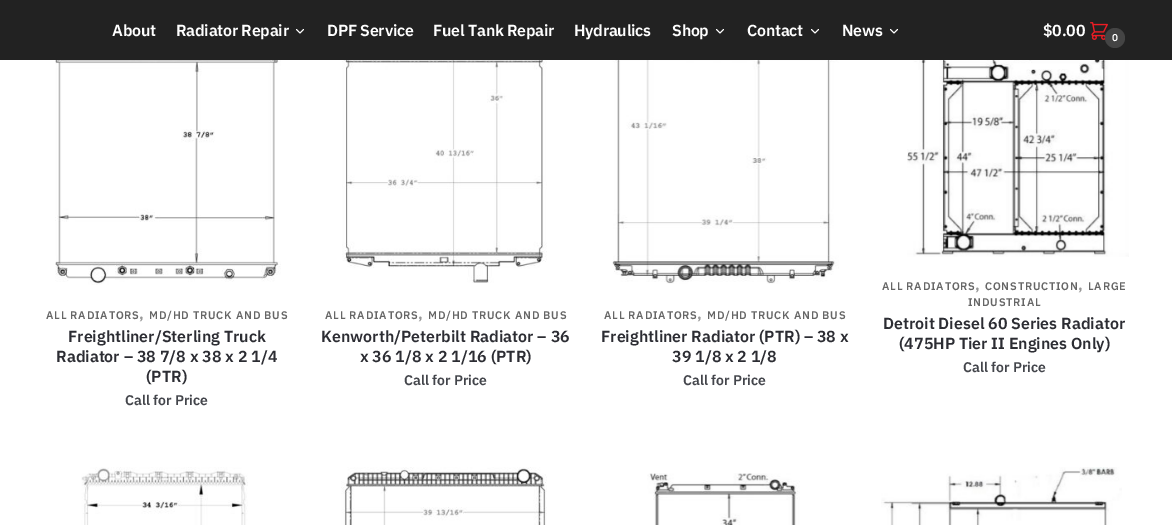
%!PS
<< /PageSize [1172 525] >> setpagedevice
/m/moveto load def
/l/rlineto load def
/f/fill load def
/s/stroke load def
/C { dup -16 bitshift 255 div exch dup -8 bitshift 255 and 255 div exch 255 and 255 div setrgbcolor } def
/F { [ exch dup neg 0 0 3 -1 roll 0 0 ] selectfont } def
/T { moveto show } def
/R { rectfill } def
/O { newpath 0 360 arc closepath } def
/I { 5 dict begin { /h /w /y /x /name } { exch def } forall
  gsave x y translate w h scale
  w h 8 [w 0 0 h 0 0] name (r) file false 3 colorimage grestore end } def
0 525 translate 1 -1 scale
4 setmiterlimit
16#FFFFFF C
0 0 1172 525 R
16#222222 C
0 0 1172 60 R
/IBMPlexSans-SemiBold 16 F
16#FFFFFF C
112 36 m -.25 0 (About) ashow
176 36 m -.25 0 (Radiator Repair) ashow
1 setlinecap
1 setlinejoin
303.5 29.5 m -3.5 3.5 l -3.5 -3.5 l s
327 36 m -.25 0 (DPF Service) ashow
433 36 m -.25 0 (Fuel Tank Repair) ashow
574 36 m -.25 0 (Hydraulics) ashow
672 36 m -.25 0 (Shop) ashow
723.5 29.5 m -3.5 3.5 l -3.5 -3.5 l s
747 36 m -.25 0 (Contact) ashow
818.5 29.5 m -3.5 3.5 l -3.5 -3.5 l s
842 36 m -.25 0 (News) ashow
897.5 29.5 m -3.5 3.5 l -3.5 -3.5 l s
1043 36 m -.25 0 ($0.00) ashow
(1.rgb) 1090 22 18 18 I
16#444444 C
1115 38 10 O f
/IBMPlexSans-SemiBold 10 F
16#FFFFFF C
1112 41 m -.25 0 (0) ashow
(2.rgb) 55 60 226 225 I
/IBMPlexSans-SemiBold 11 F
16#666666 C
46 319 m .75 0 (ALL RADIATORS) ashow
/IBMPlexSans-SemiBold 16 F
16#999999 C
139 319 m .75 0 (,) ashow
/IBMPlexSans-SemiBold 11 F
16#666666 C
149 319 m .75 0 (MD/HD TRUCK AND BUS) ashow
/IBMPlexSans-SemiBold 16 F
16#2C2D33 C
(Freightliner/Sterling Truck) 68 342 T
(Radiator – 38 7/8 x 38 x 2 1/4) 56 362 T
(\(PTR\)) 146 382 T
/IBMPlexSans-SemiBold 14 F
16#43454B C
(Call for Price) 125 405 T
(3.rgb) 342 60 205 223 I
/IBMPlexSans-SemiBold 11 F
16#666666 C
325 319 m .75 0 (ALL RADIATORS) ashow
/IBMPlexSans-SemiBold 16 F
16#999999 C
418 319 m .75 0 (,) ashow
/IBMPlexSans-SemiBold 11 F
16#666666 C
428 319 m .75 0 (MD/HD TRUCK AND BUS) ashow
/IBMPlexSans-SemiBold 16 F
16#2C2D33 C
(Kenworth/Peterbilt Radiator – 36) 321 342 T
(x 36 1/8 x 2 1/16 \(PTR\)) 360 362 T
/IBMPlexSans-SemiBold 14 F
16#43454B C
(Call for Price) 404 385 T
(4.rgb) 612 60 227 224 I
/IBMPlexSans-SemiBold 11 F
16#666666 C
604 319 m .75 0 (ALL RADIATORS) ashow
/IBMPlexSans-SemiBold 16 F
16#999999 C
697 319 m .75 0 (,) ashow
/IBMPlexSans-SemiBold 11 F
16#666666 C
707 319 m .75 0 (MD/HD TRUCK AND BUS) ashow
/IBMPlexSans-SemiBold 16 F
16#2C2D33 C
(Freightliner Radiator \(PTR\) – 38 x) 601 342 T
(39 1/8 x 2 1/8) 672 362 T
/IBMPlexSans-SemiBold 14 F
16#43454B C
(Call for Price) 683 385 T
(5.rgb) 907 60 222 197 I
/IBMPlexSans-SemiBold 11 F
16#666666 C
882 290 m .75 0 (ALL RADIATORS) ashow
/IBMPlexSans-SemiBold 16 F
16#999999 C
975 290 m .75 0 (,) ashow
/IBMPlexSans-SemiBold 11 F
16#666666 C
985 290 m .75 0 (CONSTRUCTION) ashow
/IBMPlexSans-SemiBold 16 F
16#999999 C
1078 290 m .75 0 (,) ashow
/IBMPlexSans-SemiBold 11 F
16#666666 C
1088 290 m .75 0 (LARGE) ashow
968 306 m .75 0 (INDUSTRIAL) ashow
/IBMPlexSans-SemiBold 16 F
16#2C2D33 C
(Detroit Diesel 60 Series Radiator) 883 329 T
(\(475HP Tier II Engines Only\)) 899 349 T
/IBMPlexSans-SemiBold 14 F
16#43454B C
(Call for Price) 963 372 T
(6.rgb) 81 467 167 58 I
(7.rgb) 341 467 206 58 I
(8.rgb) 647 473 153 52 I
(9.rgb) 881 467 241 58 I
showpage
